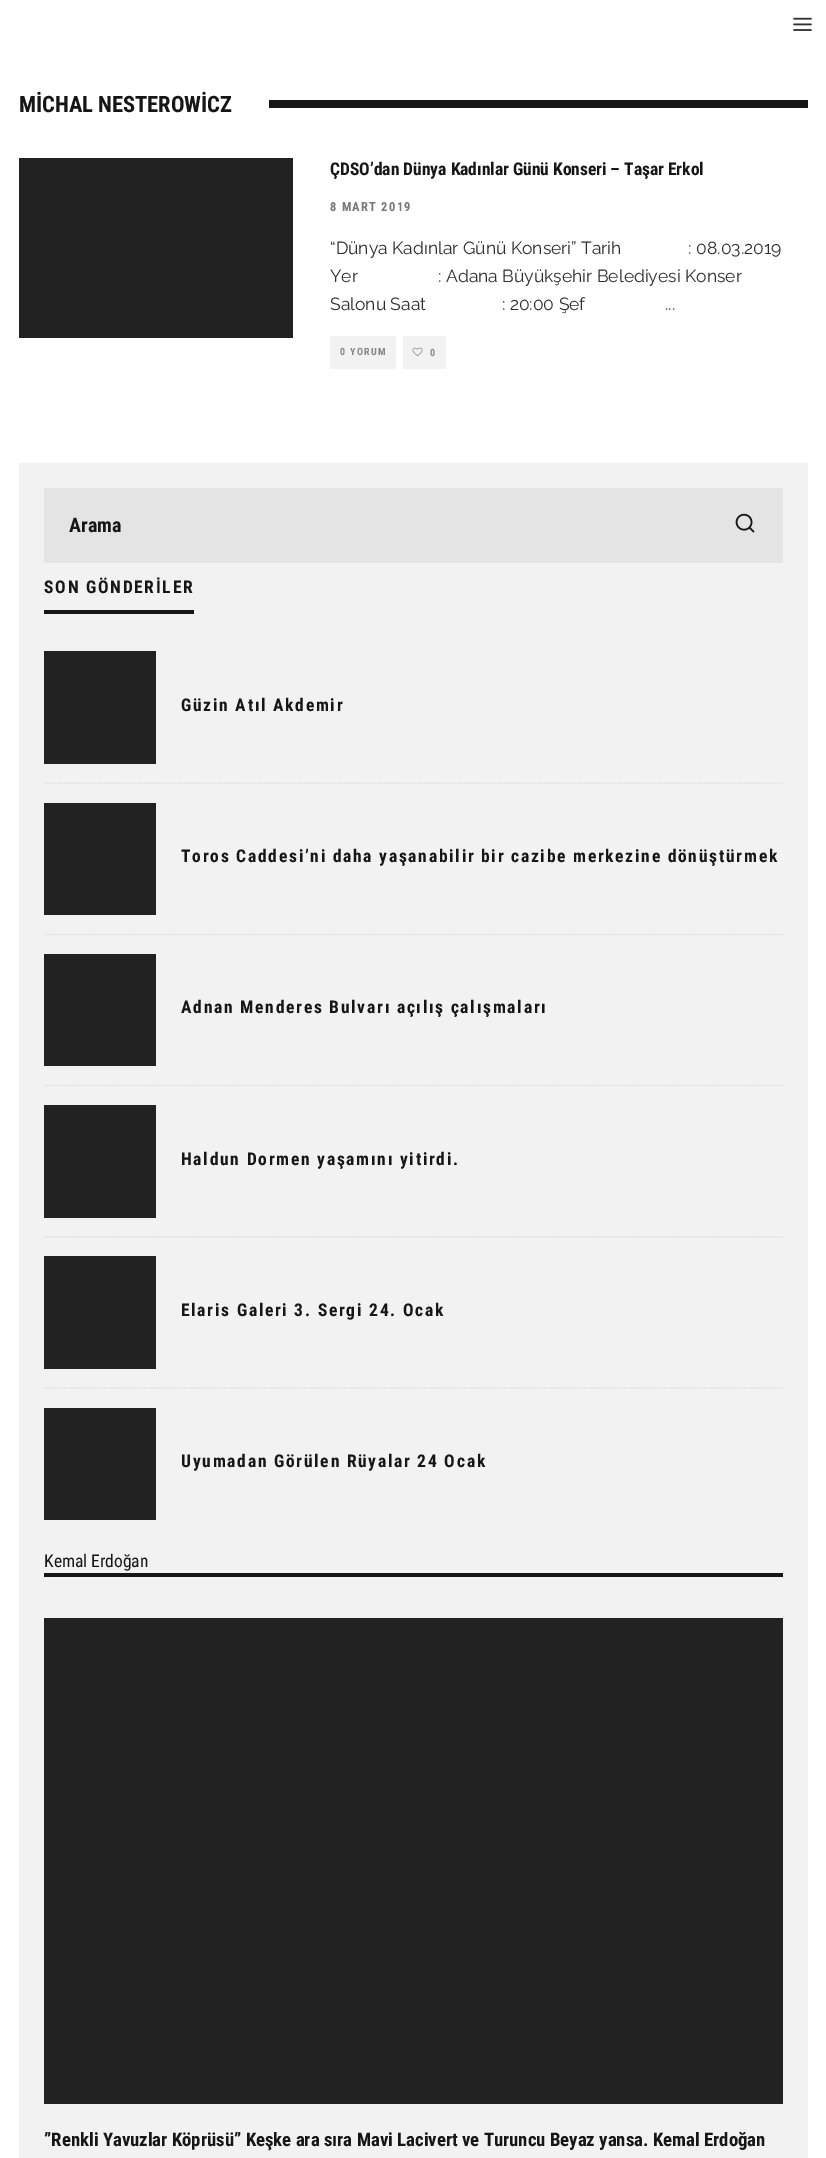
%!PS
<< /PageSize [826 2158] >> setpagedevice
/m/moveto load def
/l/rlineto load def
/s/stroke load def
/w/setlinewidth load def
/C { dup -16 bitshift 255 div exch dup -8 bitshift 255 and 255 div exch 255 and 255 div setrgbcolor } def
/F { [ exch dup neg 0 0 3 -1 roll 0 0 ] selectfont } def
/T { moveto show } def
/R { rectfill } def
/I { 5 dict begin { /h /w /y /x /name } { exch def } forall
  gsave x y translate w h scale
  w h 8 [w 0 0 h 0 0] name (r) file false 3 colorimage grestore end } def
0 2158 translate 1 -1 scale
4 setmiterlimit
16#FFFFFF C
0 0 826 2158 R
(1.rgb) 793 17 19 14 I
/RobotoCondensed-Bold 22.5 F
16#161616 C
(MİCHAL NESTEROWİCZ) 19 112 T
269 100 539 8 R
16#222222 C
19 158 274 180 R
/RobotoCondensed-Bold 17.5 F
16#161616 C
(ÇDSO’dan Dünya Kadınlar Günü Konseri – Taşar Erkol) 330 175 T
/RobotoCondensed-Bold 12.5 F
16#777777 C
330 211 m 1.25 0 (8 MART 2019) ashow
/Raleway-Regular 17.5 F
16#2E2E2E C
(“Dünya Kadınlar Günü Konseri” Tarih               : 08.03.2019) 330 254 T
(Yer                  : Adana Büyükşehir Belediyesi Konser) 330 282 T
(Salonu Saat                 : 20:00 Şef) 330 310 T
(...) 665 310 T
16#F2F2F2 C
330 336 66 33 R
/RobotoCondensed-Bold 10 F
16#868686 C
340 355 m 1.25 0 (0 YORUM) ashow
16#F2F2F2 C
403 336 43 33 R
(2.rgb) 412 347 11 10 I
16#868686 C
430 356 m 1.25 0 (0) ashow
16#F2F2F2 C
19 463 789 1695 R
16#E4E4E4 C
44 488 739 75 R
/RobotoCondensed-Bold 20 F
16#161616 C
(Arama) 69 532 T
(3.rgb) 735 513 20 20 I
44 610 150 4 R
/RobotoCondensed-Bold 17.5 F
44 593 m 1.75 0 (SON GÖNDERİLER) ashow
16#DDDDDD C
1.2 w
[1.25 1.25] 0 setdash
44 783 m 738.5 0 l s
16#222222 C
44 651 112 113 R
16#161616 C
181 711 m 1.75 0 (Güzin Atıl Akdemir) ashow
16#DDDDDD C
44 934.5 m 738.5 0 l s
16#222222 C
44 803 112 112 R
16#161616 C
181 862 m 1.75 0 (Toros Caddesi’ni daha yaşanabilir bir cazibe merkezine dönüştürmek) ashow
16#DDDDDD C
44 1085.5 m 738.5 0 l s
16#222222 C
44 954 112 112 R
16#161616 C
181 1013 m 1.75 0 (Adnan Menderes Bulvarı açılış çalışmaları) ashow
16#DDDDDD C
44 1237 m 738.5 0 l s
16#222222 C
44 1105 112 113 R
16#161616 C
181 1165 m 1.75 0 (Haldun Dormen yaşamını yitirdi.) ashow
16#DDDDDD C
44 1388 m 738.5 0 l s
16#222222 C
44 1256 112 113 R
16#161616 C
181 1316 m 1.75 0 (Elaris Galeri 3. Sergi 24. Ocak) ashow
16#222222 C
44 1408 112 112 R
16#161616 C
181 1467 m 1.75 0 (Uyumadan Görülen Rüyalar 24 Ocak) ashow
44 1573 739 4 R
/RobotoCondensed-Regular 17.5 F
(Kemal Erdoğan) 44 1567 T
16#222222 C
44 1618 739 486 R
/RobotoCondensed-Bold 18.75 F
16#161616 C
(”Renkli Yavuzlar Köprüsü” Keşke ara sıra Mavi Lacivert ve Turuncu Beyaz yansa. Kemal Erdoğan) 44 2146 T
showpage
